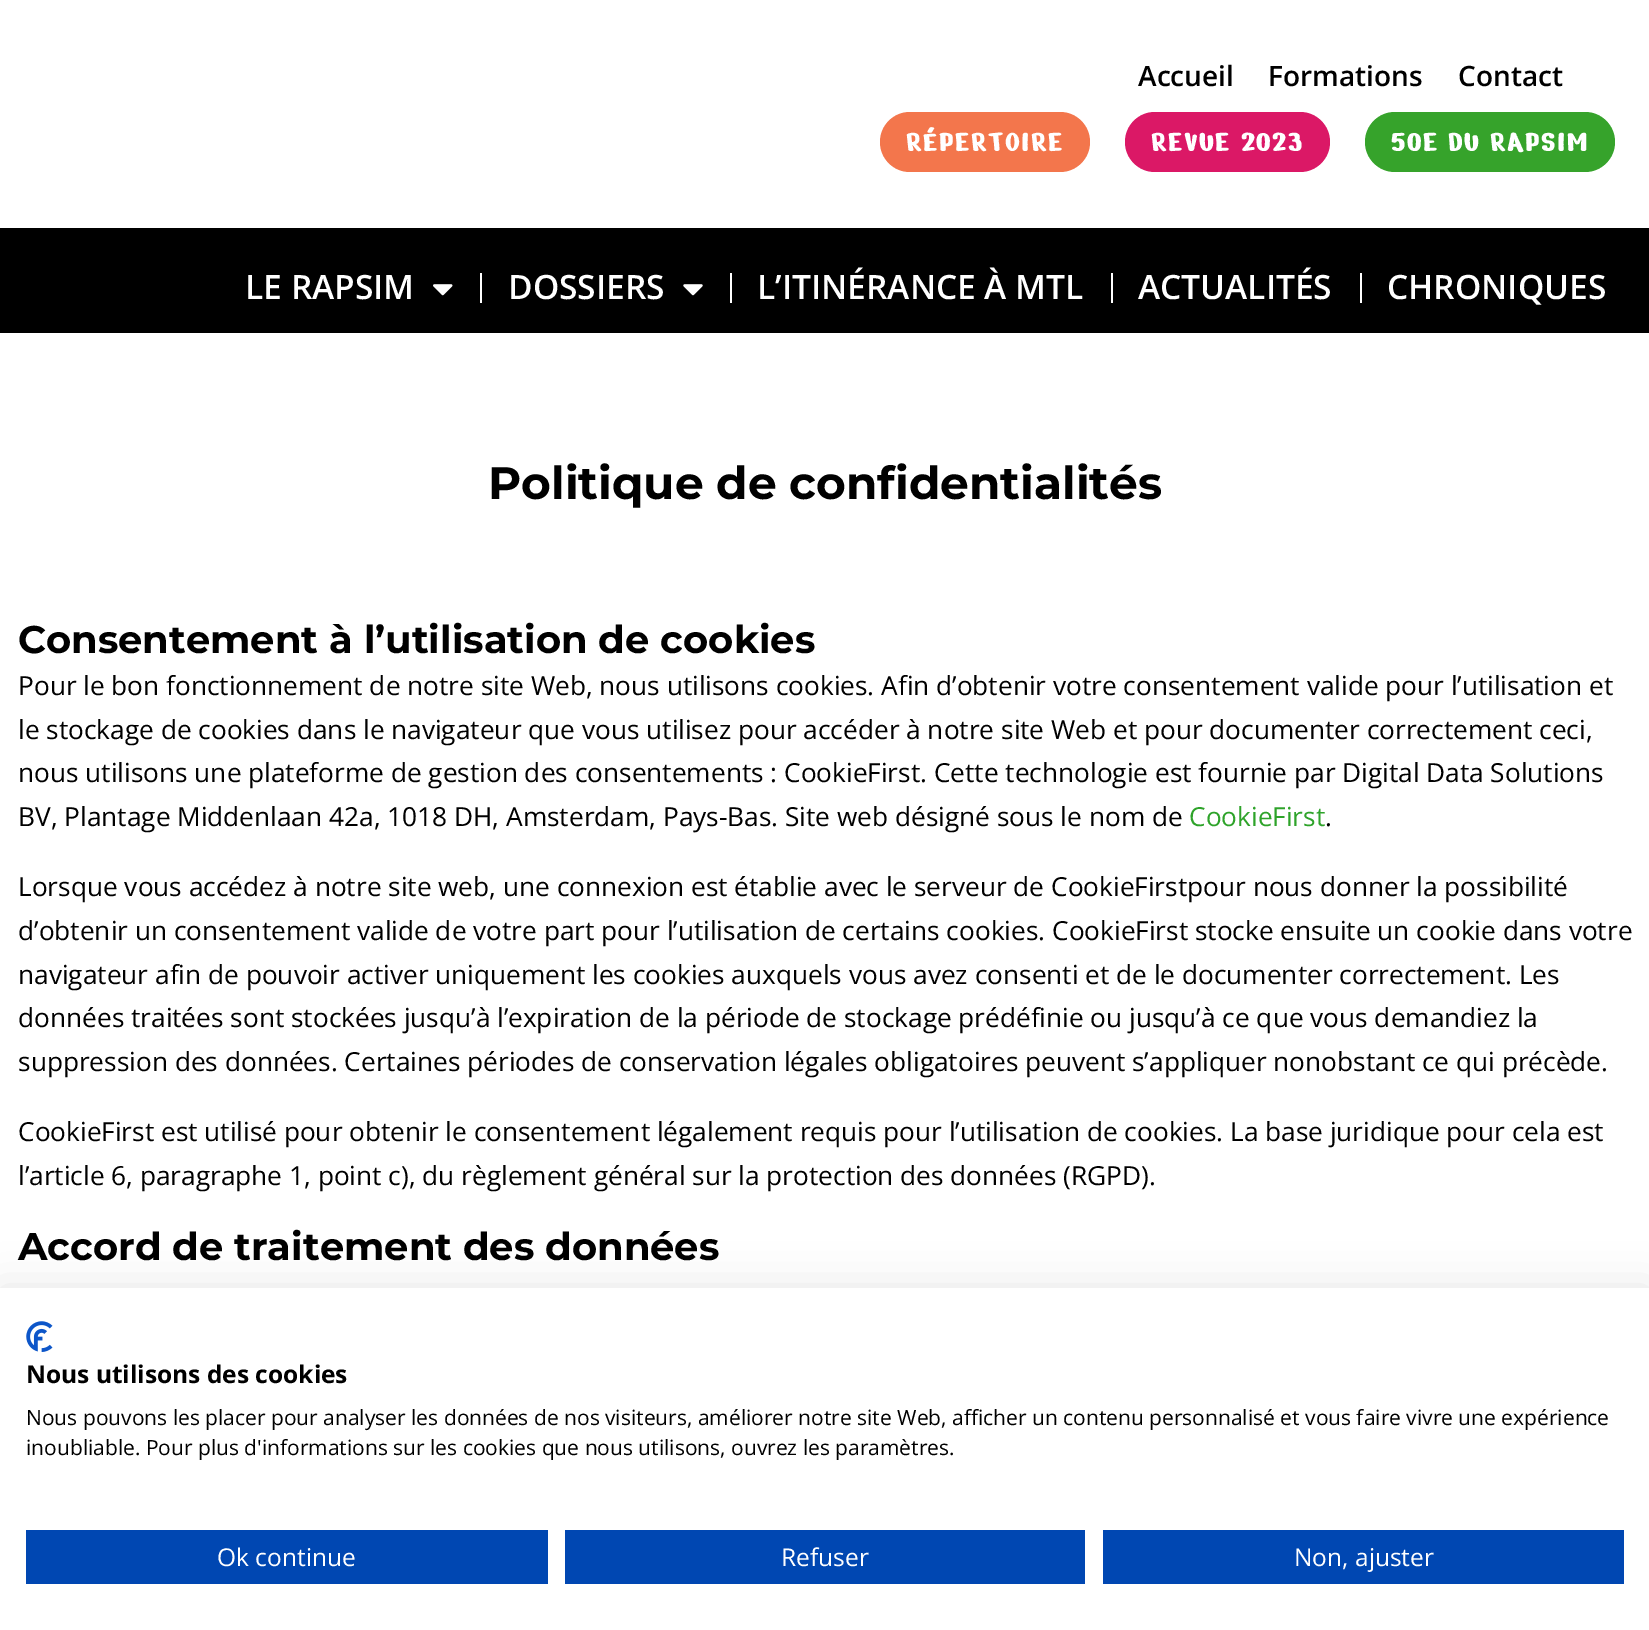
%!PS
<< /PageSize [1649 1630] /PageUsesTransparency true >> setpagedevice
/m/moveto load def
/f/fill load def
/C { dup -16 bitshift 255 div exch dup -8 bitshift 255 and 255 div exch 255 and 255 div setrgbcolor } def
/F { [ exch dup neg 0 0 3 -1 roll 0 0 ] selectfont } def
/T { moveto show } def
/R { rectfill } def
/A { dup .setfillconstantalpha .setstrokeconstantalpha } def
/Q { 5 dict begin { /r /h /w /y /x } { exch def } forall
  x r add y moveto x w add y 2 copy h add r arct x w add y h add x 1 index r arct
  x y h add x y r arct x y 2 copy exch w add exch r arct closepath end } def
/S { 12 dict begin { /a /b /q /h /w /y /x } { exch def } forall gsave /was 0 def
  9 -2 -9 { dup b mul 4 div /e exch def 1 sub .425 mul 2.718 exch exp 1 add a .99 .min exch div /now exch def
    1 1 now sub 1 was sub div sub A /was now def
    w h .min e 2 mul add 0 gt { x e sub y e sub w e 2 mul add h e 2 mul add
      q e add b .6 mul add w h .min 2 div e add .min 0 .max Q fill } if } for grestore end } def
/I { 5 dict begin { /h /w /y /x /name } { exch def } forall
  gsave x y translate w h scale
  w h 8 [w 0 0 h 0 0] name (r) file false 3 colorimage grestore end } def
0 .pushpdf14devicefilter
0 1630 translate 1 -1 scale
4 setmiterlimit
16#FFFFFF C
0 0 1649 1630 R
/OpenSans-SemiBold 28 F
16#000000 C
(Accueil) 1138 86 T
(Formations) 1268 86 T
(Contact) 1458 86 T
16#F3764C C
880 112 210 60 30 Q f
/NerkoOne-Regular 31.5 F
16#FFFFFF C
906 151 m 1.4 0 (RÉPERTOIRE) ashow
16#DB1866 C
1125 112 205 60 30 Q f
16#FFFFFF C
1151 151 m 1.4 0 (REVUE 2023) ashow
16#36A32B C
1365 112 250 60 30 Q f
16#FFFFFF C
1391 151 m 1.4 0 (50E DU RAPSIM) ashow
16#000000 C
0 228 1649 105 R
/OpenSans-SemiBold 33.5 F
16#FFFFFF C
(LE RAPSIM) 245 299 T
(1.rgb) 433 284 20 12 I
480 273 2 30 R
(DOSSIERS) 508 299 T
(2.rgb) 683 284 20 12 I
730 273 2 30 R
(L’ITINÉRANCE À MTL) 757 299 T
1111 273 2 30 R
(ACTUALITÉS) 1138 299 T
1360 273 2 30 R
(CHRONIQUES) 1387 299 T
/Montserrat-Bold 45.5 F
16#000000 C
(Politique de confidentialités) 488 499 T
/Montserrat-Bold 38.5 F
(Consentement à l’utilisation de cookies) 18 653 T
/OpenSans-Regular 26.25 F
(Pour le bon fonctionnement de notre site Web, nous utilisons cookies. Afin d’obtenir votre consentement valide pour l’utilisation et) 18 695 T
(le stockage de cookies dans le navigateur que vous utilisez pour accéder à notre site Web et pour documenter correctement ceci,) 18 739 T
(nous utilisons une plateforme de gestion des consentements : CookieFirst. Cette technologie est fournie par Digital Data Solutions) 18 782 T
(BV, Plantage Middenlaan 42a, 1018 DH, Amsterdam, Pays-Bas. Site web désigné sous le nom de) 18 826 T
16#2EA32A C
(CookieFirst) 1189 826 T
16#000000 C
(.) 1325 826 T
(Lorsque vous accédez à notre site web, une connexion est établie avec le serveur de CookieFirstpour nous donner la possibilité) 18 896 T
(d’obtenir un consentement valide de votre part pour l’utilisation de certains cookies. CookieFirst stocke ensuite un cookie dans votre) 18 940 T
(navigateur afin de pouvoir activer uniquement les cookies auxquels vous avez consenti et de le documenter correctement. Les) 18 984 T
(données traitées sont stockées jusqu’à l’expiration de la période de stockage prédéfinie ou jusqu’à ce que vous demandiez la) 18 1027 T
(suppression des données. Certaines périodes de conservation légales obligatoires peuvent s’appliquer nonobstant ce qui précède.) 18 1071 T
(CookieFirst est utilisé pour obtenir le consentement légalement requis pour l’utilisation de cookies. La base juridique pour cela est) 18 1141 T
(l’article 6, paragraphe 1, point c\), du règlement général sur la protection des données \(RGPD\).) 18 1185 T
/Montserrat-Bold 38.5 F
(Accord de traitement des données) 18 1260 T
0 1288 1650 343 0 21 .1 S
16#FFFFFF C
0 1288 1649 342 R
(3.rgb) 26 1321 27 31 I
/OpenSans-Bold 24.5 F
16#000000 C
(Nous utilisons des cookies) 26 1383 T
/OpenSans-Regular 21 F
(Nous pouvons les placer pour analyser les données de nos visiteurs, améliorer notre site Web, afficher un contenu personnalisé et vous faire vivre une expérience) 26 1425 T
(inoubliable. Pour plus d'informations sur les cookies que nous utilisons, ouvrez les paramètres.) 26 1455 T
16#0047B2 C
26 1530 522 54 R
/OpenSans-Regular 24.5 F
16#FFFFFF C
(Ok continue) 217 1566 T
16#0047B2 C
565 1530 520 54 R
16#FFFFFF C
(Refuser) 781 1566 T
16#0047B2 C
1103 1530 521 54 R
16#FFFFFF C
(Non, ajuster) 1294 1566 T
.poppdf14devicefilter showpage
